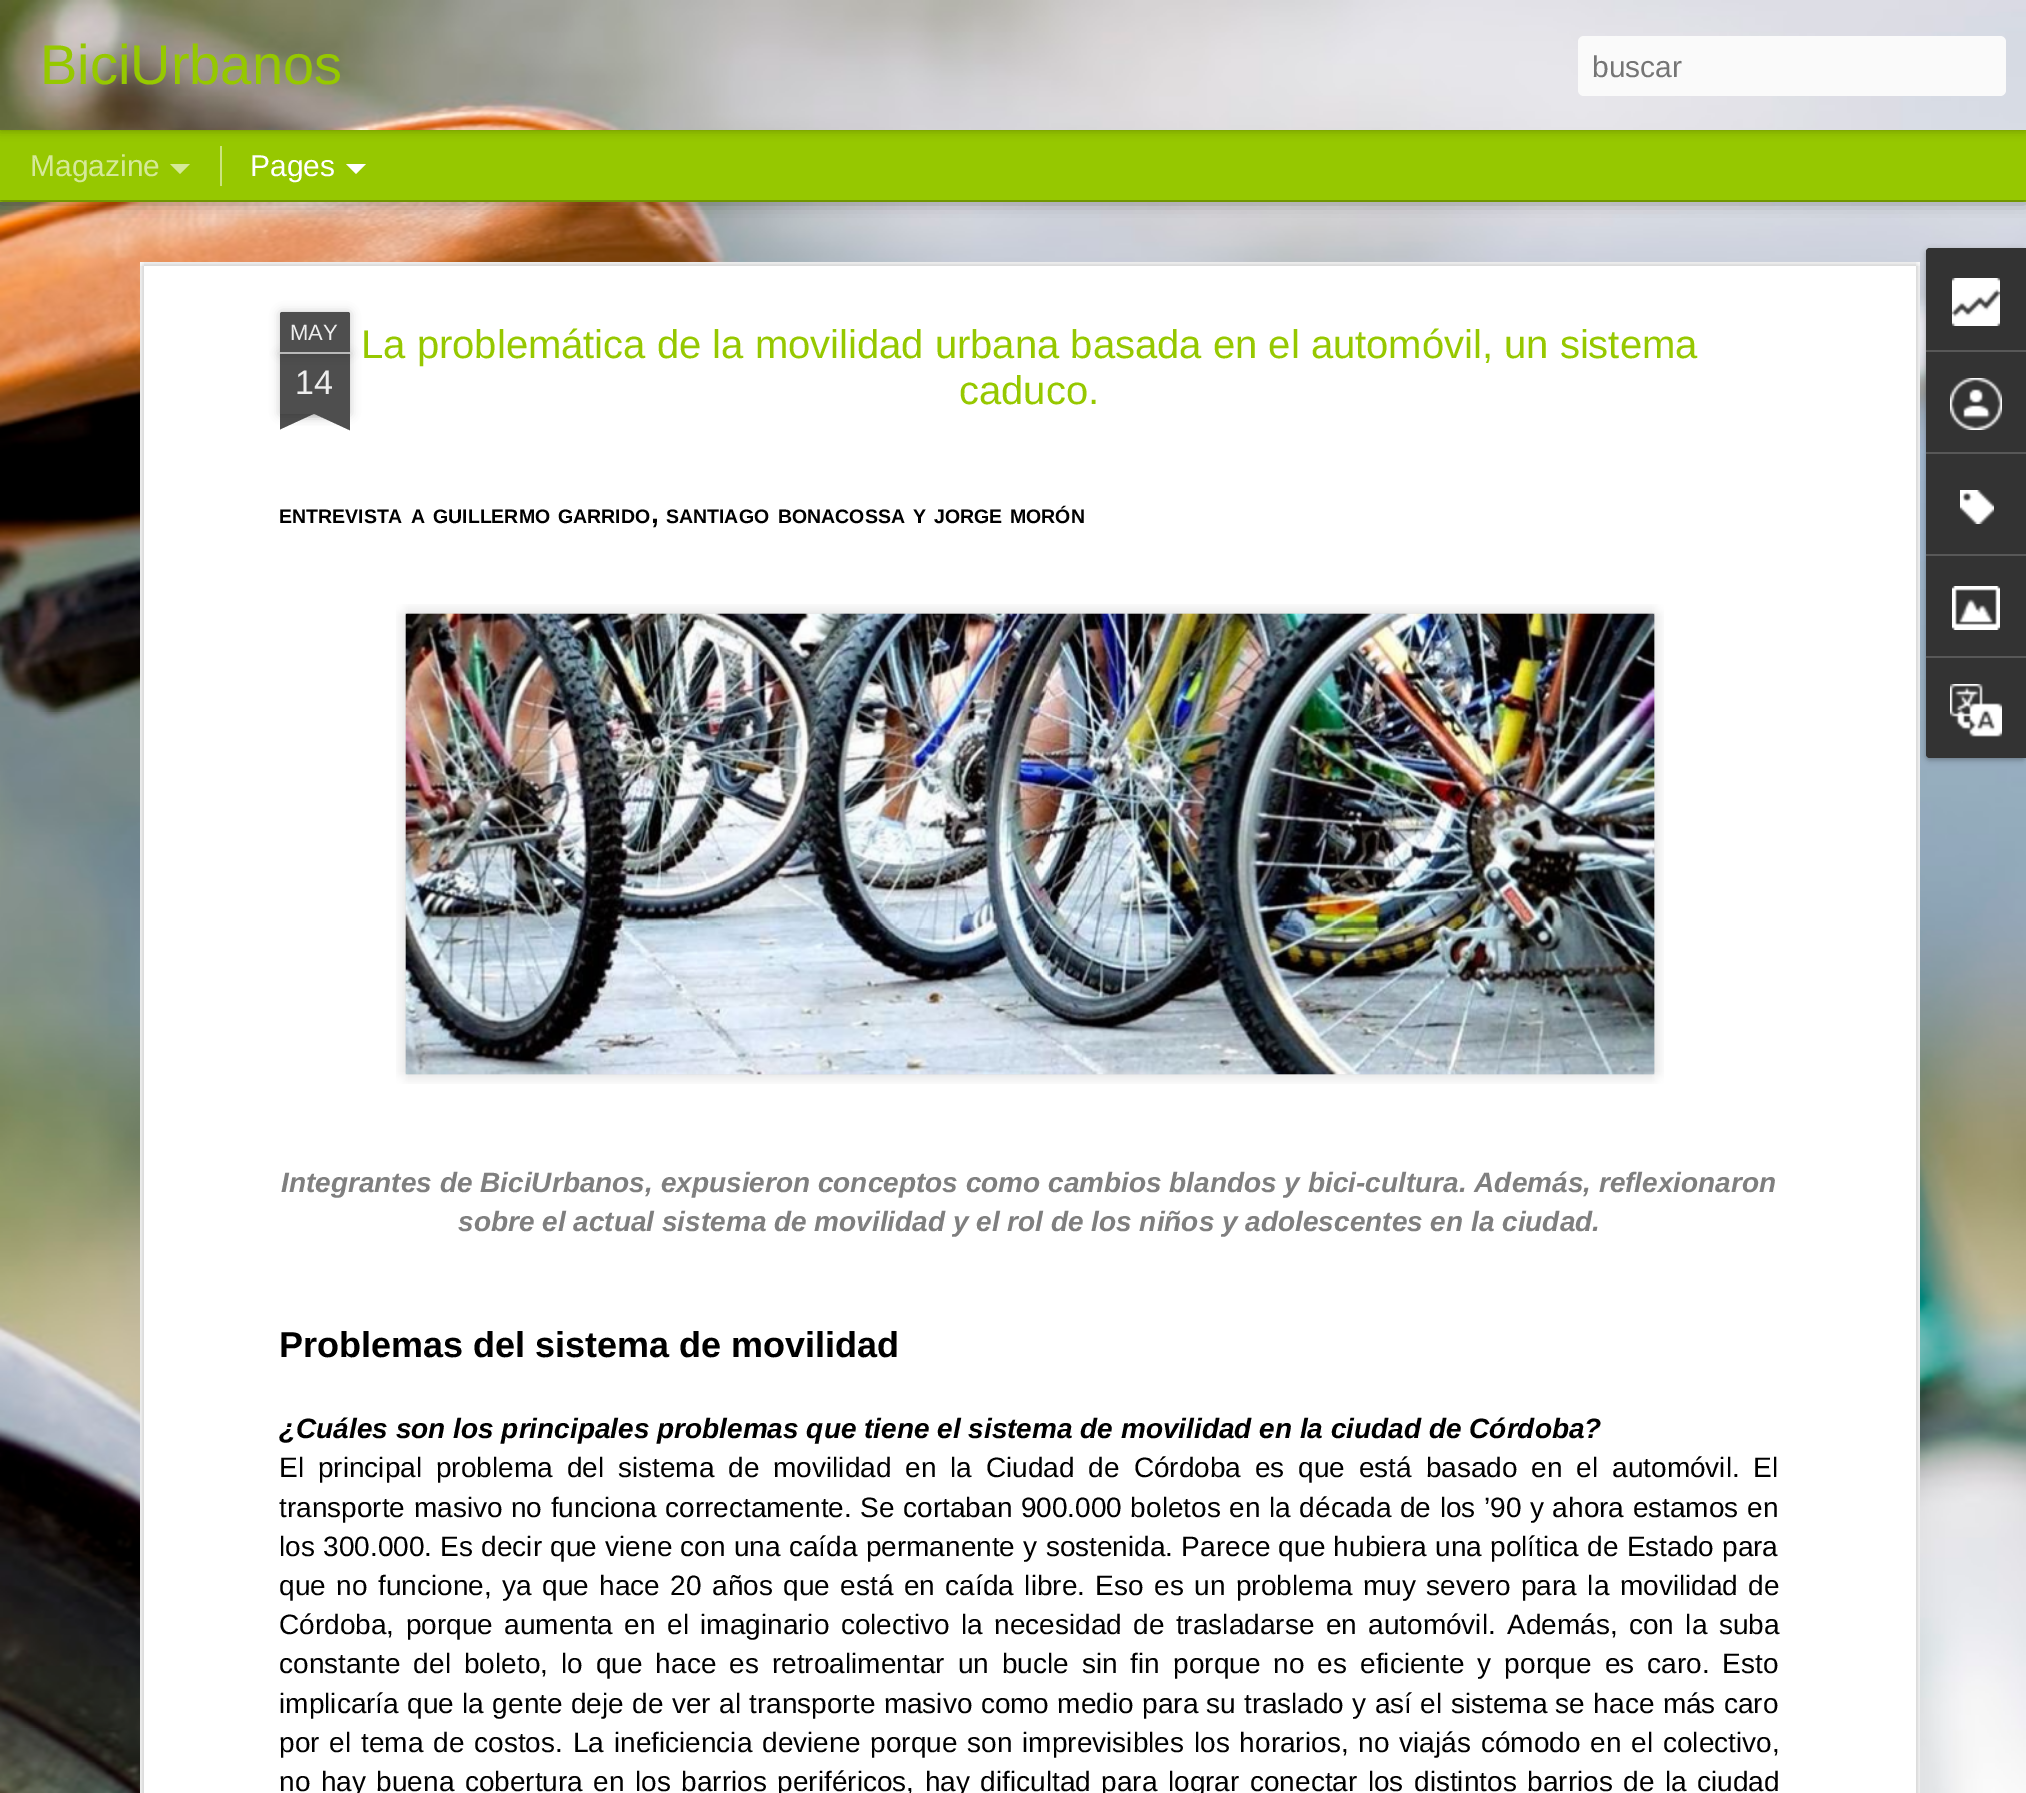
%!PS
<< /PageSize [2026 1793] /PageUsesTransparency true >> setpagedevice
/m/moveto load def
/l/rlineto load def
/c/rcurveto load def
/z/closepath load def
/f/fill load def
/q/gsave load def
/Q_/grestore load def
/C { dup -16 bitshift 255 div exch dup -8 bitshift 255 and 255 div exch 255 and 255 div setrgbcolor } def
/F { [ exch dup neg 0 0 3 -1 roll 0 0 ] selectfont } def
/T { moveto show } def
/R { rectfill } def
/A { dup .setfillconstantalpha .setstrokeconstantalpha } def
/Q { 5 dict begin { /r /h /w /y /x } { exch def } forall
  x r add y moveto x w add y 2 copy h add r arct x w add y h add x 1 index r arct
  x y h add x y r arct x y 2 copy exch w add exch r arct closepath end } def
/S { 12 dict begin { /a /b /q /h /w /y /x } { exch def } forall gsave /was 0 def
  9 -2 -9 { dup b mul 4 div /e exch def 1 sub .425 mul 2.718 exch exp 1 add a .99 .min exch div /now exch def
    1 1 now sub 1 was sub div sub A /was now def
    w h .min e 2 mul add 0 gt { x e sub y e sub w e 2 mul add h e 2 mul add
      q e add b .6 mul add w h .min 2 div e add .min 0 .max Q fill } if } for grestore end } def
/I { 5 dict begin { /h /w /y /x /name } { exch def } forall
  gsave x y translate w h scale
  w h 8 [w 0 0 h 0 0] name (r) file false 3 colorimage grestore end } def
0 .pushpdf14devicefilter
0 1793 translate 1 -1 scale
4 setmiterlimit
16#96C800 C
0 0 2026 1793 R
(2.rgb) 0 202 2026 1591 I
16#000000 C
0 130 2026 70 0 8 .5 S
16#96C800 C
0 130 2026 70 R
16#000000 C
0 0 2026 130 0 5 .3 S
(1.rgb) 0 0 2026 130 I
/LiberationSans-Regular 56 F
16#96C800 C
(BiciUrbanos) 40 84 T
16#FAFAFA C
1578 36 428 60 6 Q f
/LiberationSans-Regular 30 F
16#757575 C
(buscar) 1592 77 T
16#D5E999 C
(Magazine) 30 176 T
170 164 m 20 0 l -10 10 l z f
16#CBE480 C
220 146 2 40 R
16#FFFFFF C
(Pages) 250 176 T
346 164 m 20 0 l -10 10 l z f
140 262 1780 1531 R
(3.rgb) 140 262 1780 1531 I
16#000000 C
280 354 70 60 0 5 .2 S
16#4E4E4E C
280 354 70 60 R
16#000000 C
280 312 70 42 2 5 .2 S
16#4E4E4E C
282 312 m 66 0 l 1 0 2 1 2 2 c 0 40 l -70 0 l 0 -40 l 0 -1 1 -2 2 -2 c z f
16#B8B8B8 C
280 352 70 2 R
/LiberationSans-Regular 22 F
16#EEEEEE C
(MAY) 290 340 T
/LiberationSans-Regular 34 F
(14) 295 394 T
q
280 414 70 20 rectclip
16#000000 C
262 394 100 20 0 5 .2 S
Q_
q
280 414 70 20 rectclip
16#4E4E4E C
261 416 m 91 -42 l 9 18 l -91 42 l z f
Q_
q
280 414 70 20 rectclip
16#000000 C
268 394 100 20 0 5 .2 S
Q_
q
280 414 70 20 rectclip
16#4E4E4E C
276 374 m 91 42 l -9 18 l -91 -42 l z f
Q_
/LiberationSans-Regular 40 F
16#96C800 C
(La problemática de la movilidad urbana basada en el automóvil, un sistema) 361 358 T
(caduco.) 959 404 T
/LiberationSans-Bold 19.5 F
16#000000 C
(ENTREVISTA) 279 523 T
(A) 411 523 T
(GUILLERMO) 433 523 T
(GARRIDO) 558 523 T
/LiberationSans-Bold 28 F
(,) 651 523 T
/LiberationSans-Bold 19.5 F
(SANTIAGO) 666 523 T
(BONACOSSA) 778 523 T
(Y) 913 523 T
(JORGE) 934 523 T
(MORÓN) 1010 523 T
(4.rgb) 396 604 1268 480 I
(5.rgb) 405 613 1250 462 I
/LiberationSans-BoldItalic 28 F
16#7F7F7F C
(Integrantes de BiciUrbanos, expusieron conceptos como cambios blandos y bici-cultura. Además, reflexionaron) 281 1192 T
(sobre el actual sistema de movilidad y el rol de los niños y adolescentes en la ciudad.) 458 1231 T
/LiberationSans-Bold 36 F
16#000000 C
(Problemas del sistema de movilidad) 279 1357 T
/LiberationSans-BoldItalic 28 F
(¿Cuáles son los principales problemas que tiene el sistema de movilidad en la ciudad de Córdoba?) 279 1438 T
/LiberationSans-Regular 28 F
279 1477 m 6.1 0 32 (El principal problema del sistema de movilidad en la Ciudad de Córdoba es que está basado en el automóvil. El) widthshow
279 1517 m .8 0 32 (transporte masivo no funciona correctamente. Se cortaban 900.000 boletos en la década de los ’90 y ahora estamos en) widthshow
279 1556 m .5 0 32 (los 300.000. Es decir que viene con una caída permanente y sostenida. Parece que hubiera una política de Estado para) widthshow
279 1595 m 2.7 0 32 (que no funcione, ya que hace 20 años que está en caída libre. Eso es un problema muy severo para la movilidad de) widthshow
279 1634 m 3.6 0 32 (Córdoba, porque aumenta en el imaginario colectivo la necesidad de trasladarse en automóvil. Además, con la suba) widthshow
279 1673 m 5.25 0 32 (constante del boleto, lo que hace es retroalimentar un bucle sin fin porque no es eficiente y porque es caro. Esto) widthshow
279 1713 m .6 0 32 (implicaría que la gente deje de ver al transporte masivo como medio para su traslado y así el sistema se hace más caro) widthshow
279 1752 m 2.1 0 32 (por el tema de costos. La ineficiencia deviene porque son imprevisibles los horarios, no viajás cómodo en el colectivo,) widthshow
279 1791 m 2.7 0 32 (no hay buena cobertura en los barrios periféricos, hay dificultad para lograr conectar los distintos barrios de la ciudad) widthshow
1926 250 100 510 4 3 .3 S
16#333333 C
1930 248 m 96 0 l 0 510 l -96 0 l -2 0 -4 -2 -4 -4 c 0 -502 l 0 -2 2 -4 4 -4 c z f
1930 248 m 96 0 l 0 102 l -100 0 l 0 -98 l 0 -2 2 -4 4 -4 c z f
(6.rgb) 1952 278 48 48 I
16#585858 C
1926 350 100 2 R
(7.rgb) 1950 378 52 52 I
1926 452 100 2 R
(8.rgb) 1960 490 34 34 I
1926 554 100 2 R
(9.rgb) 1952 586 48 44 I
16#333333 C
1926 656 m 100 0 l 0 102 l -96 0 l -2 0 -4 -2 -4 -4 c z f
16#585858 C
1926 656 100 2 R
(10.rgb) 1950 684 52 53 I
.poppdf14devicefilter showpage
